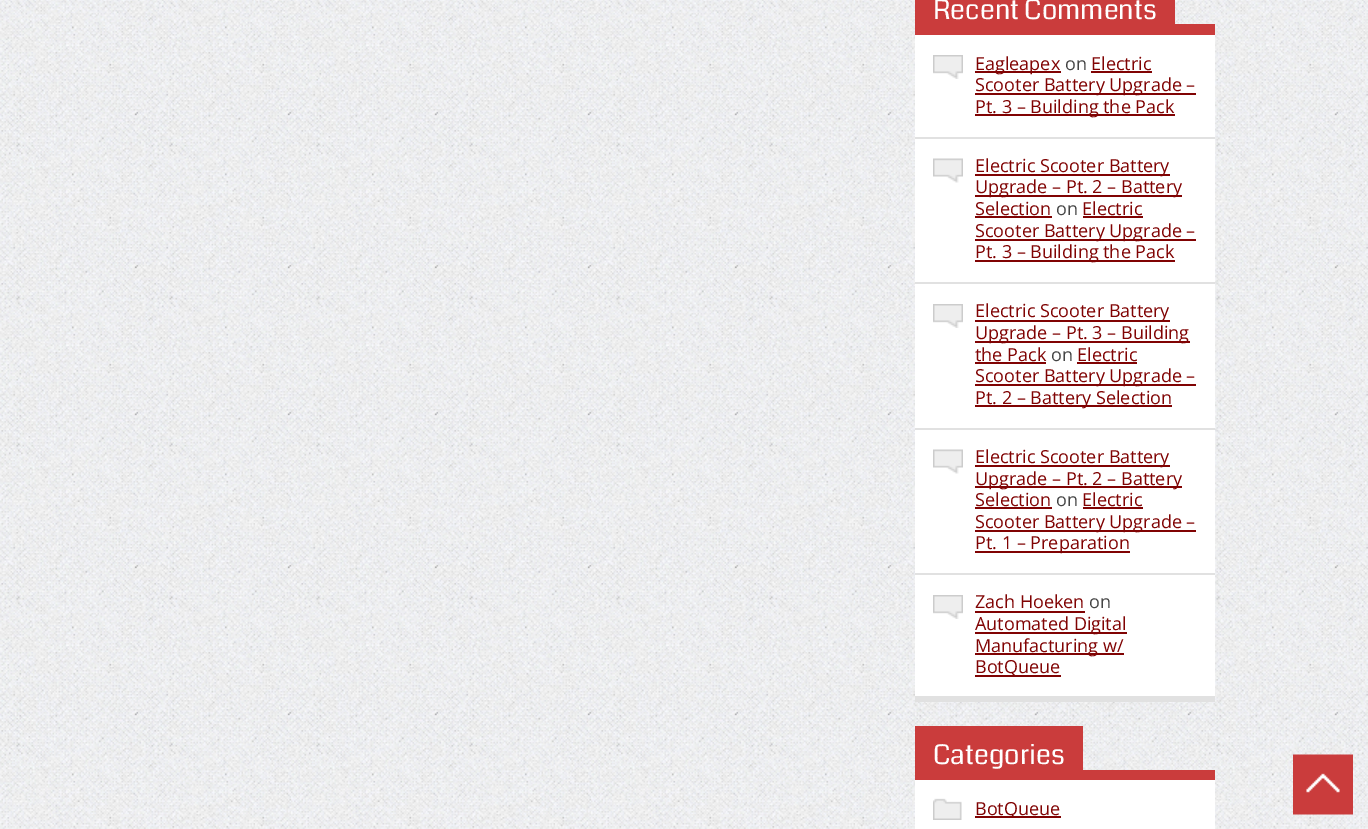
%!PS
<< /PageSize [1368 829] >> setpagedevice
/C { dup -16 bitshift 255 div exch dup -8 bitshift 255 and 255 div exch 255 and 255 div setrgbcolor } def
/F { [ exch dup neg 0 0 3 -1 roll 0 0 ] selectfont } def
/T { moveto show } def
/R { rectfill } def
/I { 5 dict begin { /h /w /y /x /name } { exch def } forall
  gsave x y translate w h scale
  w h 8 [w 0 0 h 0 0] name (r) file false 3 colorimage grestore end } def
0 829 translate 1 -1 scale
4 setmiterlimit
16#FFFFFF C
0 0 1368 829 R
(1.rgb) 0 0 1368 829 I
16#E1E1E1 C
915 696 300 6 R
16#CA3C3C C
915 0 260 24 R
/Coda-Regular 27 F
16#FFFFFF C
(Recent Comments) 933 19 T
16#CA3C3C C
915 24 300 11 R
16#FFFFFF C
915 35 300 661 R
(2.rgb) 933 55 30 24 I
16#E1E1E1 C
915 137 300 2 R
16#800303 C
975 71 86 2 R
/OpenSans-Regular 18 F
(Eagleapex) 975 70 T
16#444444 C
(on) 1065 70 T
16#800303 C
(Electric) 1091 70 T
1091 71 61 2 R
975 93 221 2 R
(Scooter Battery Upgrade –) 975 91 T
975 114 200 2 R
(Pt. 3 – Building the Pack) 975 113 T
(3.rgb) 933 158 30 25 I
16#E1E1E1 C
915 282 300 2 R
16#800303 C
975 174 195 2 R
(Electric Scooter Battery) 975 172 T
975 195 207 2 R
(Upgrade – Pt. 2 – Battery) 975 193 T
(Selection) 975 215 T
975 216 77 2 R
16#444444 C
(on) 1056 215 T
16#800303 C
(Electric) 1082 215 T
1083 216 60 2 R
975 239 221 2 R
(Scooter Battery Upgrade –) 975 237 T
975 260 200 2 R
(Pt. 3 – Building the Pack) 975 258 T
(2.rgb) 933 304 30 24 I
16#E1E1E1 C
915 428 300 2 R
16#800303 C
975 320 195 2 R
(Electric Scooter Battery) 975 317 T
975 341 215 2 R
(Upgrade – Pt. 3 – Building) 975 339 T
(the Pack) 975 361 T
975 362 71 2 R
16#444444 C
(on) 1051 361 T
16#800303 C
(Electric) 1077 361 T
1077 362 60 2 R
975 384 221 2 R
(Scooter Battery Upgrade –) 975 382 T
975 405 197 2 R
(Pt. 2 – Battery Selection) 975 404 T
(3.rgb) 933 449 30 25 I
16#E1E1E1 C
915 573 300 2 R
16#800303 C
975 465 195 2 R
(Electric Scooter Battery) 975 463 T
975 486 207 2 R
(Upgrade – Pt. 2 – Battery) 975 485 T
(Selection) 975 506 T
975 507 77 2 R
16#444444 C
(on) 1056 506 T
16#800303 C
(Electric) 1082 506 T
1083 507 60 2 R
975 530 221 2 R
(Scooter Battery Upgrade –) 975 528 T
975 551 155 2 R
(Pt. 1 – Preparation) 975 549 T
(2.rgb) 933 595 30 24 I
(Zach Hoeken) 975 608 T
975 611 110 2 R
16#444444 C
(on) 1089 608 T
16#800303 C
975 632 152 2 R
(Automated Digital) 975 630 T
975 653 149 2 R
(Manufacturing w/) 975 652 T
975 675 86 2 R
(BotQueue) 975 673 T
16#CA3C3C C
915 726 168 44 R
/Coda-Regular 27 F
16#FFFFFF C
(Categories) 933 764 T
16#CA3C3C C
915 770 300 10 R
16#FFFFFF C
915 780 300 49 R
(4.rgb) 933 798 29 22 I
16#800303 C
975 816 86 2 R
/OpenSans-Regular 18 F
(BotQueue) 975 815 T
(5.rgb) 1293 754 60 61 I
showpage
